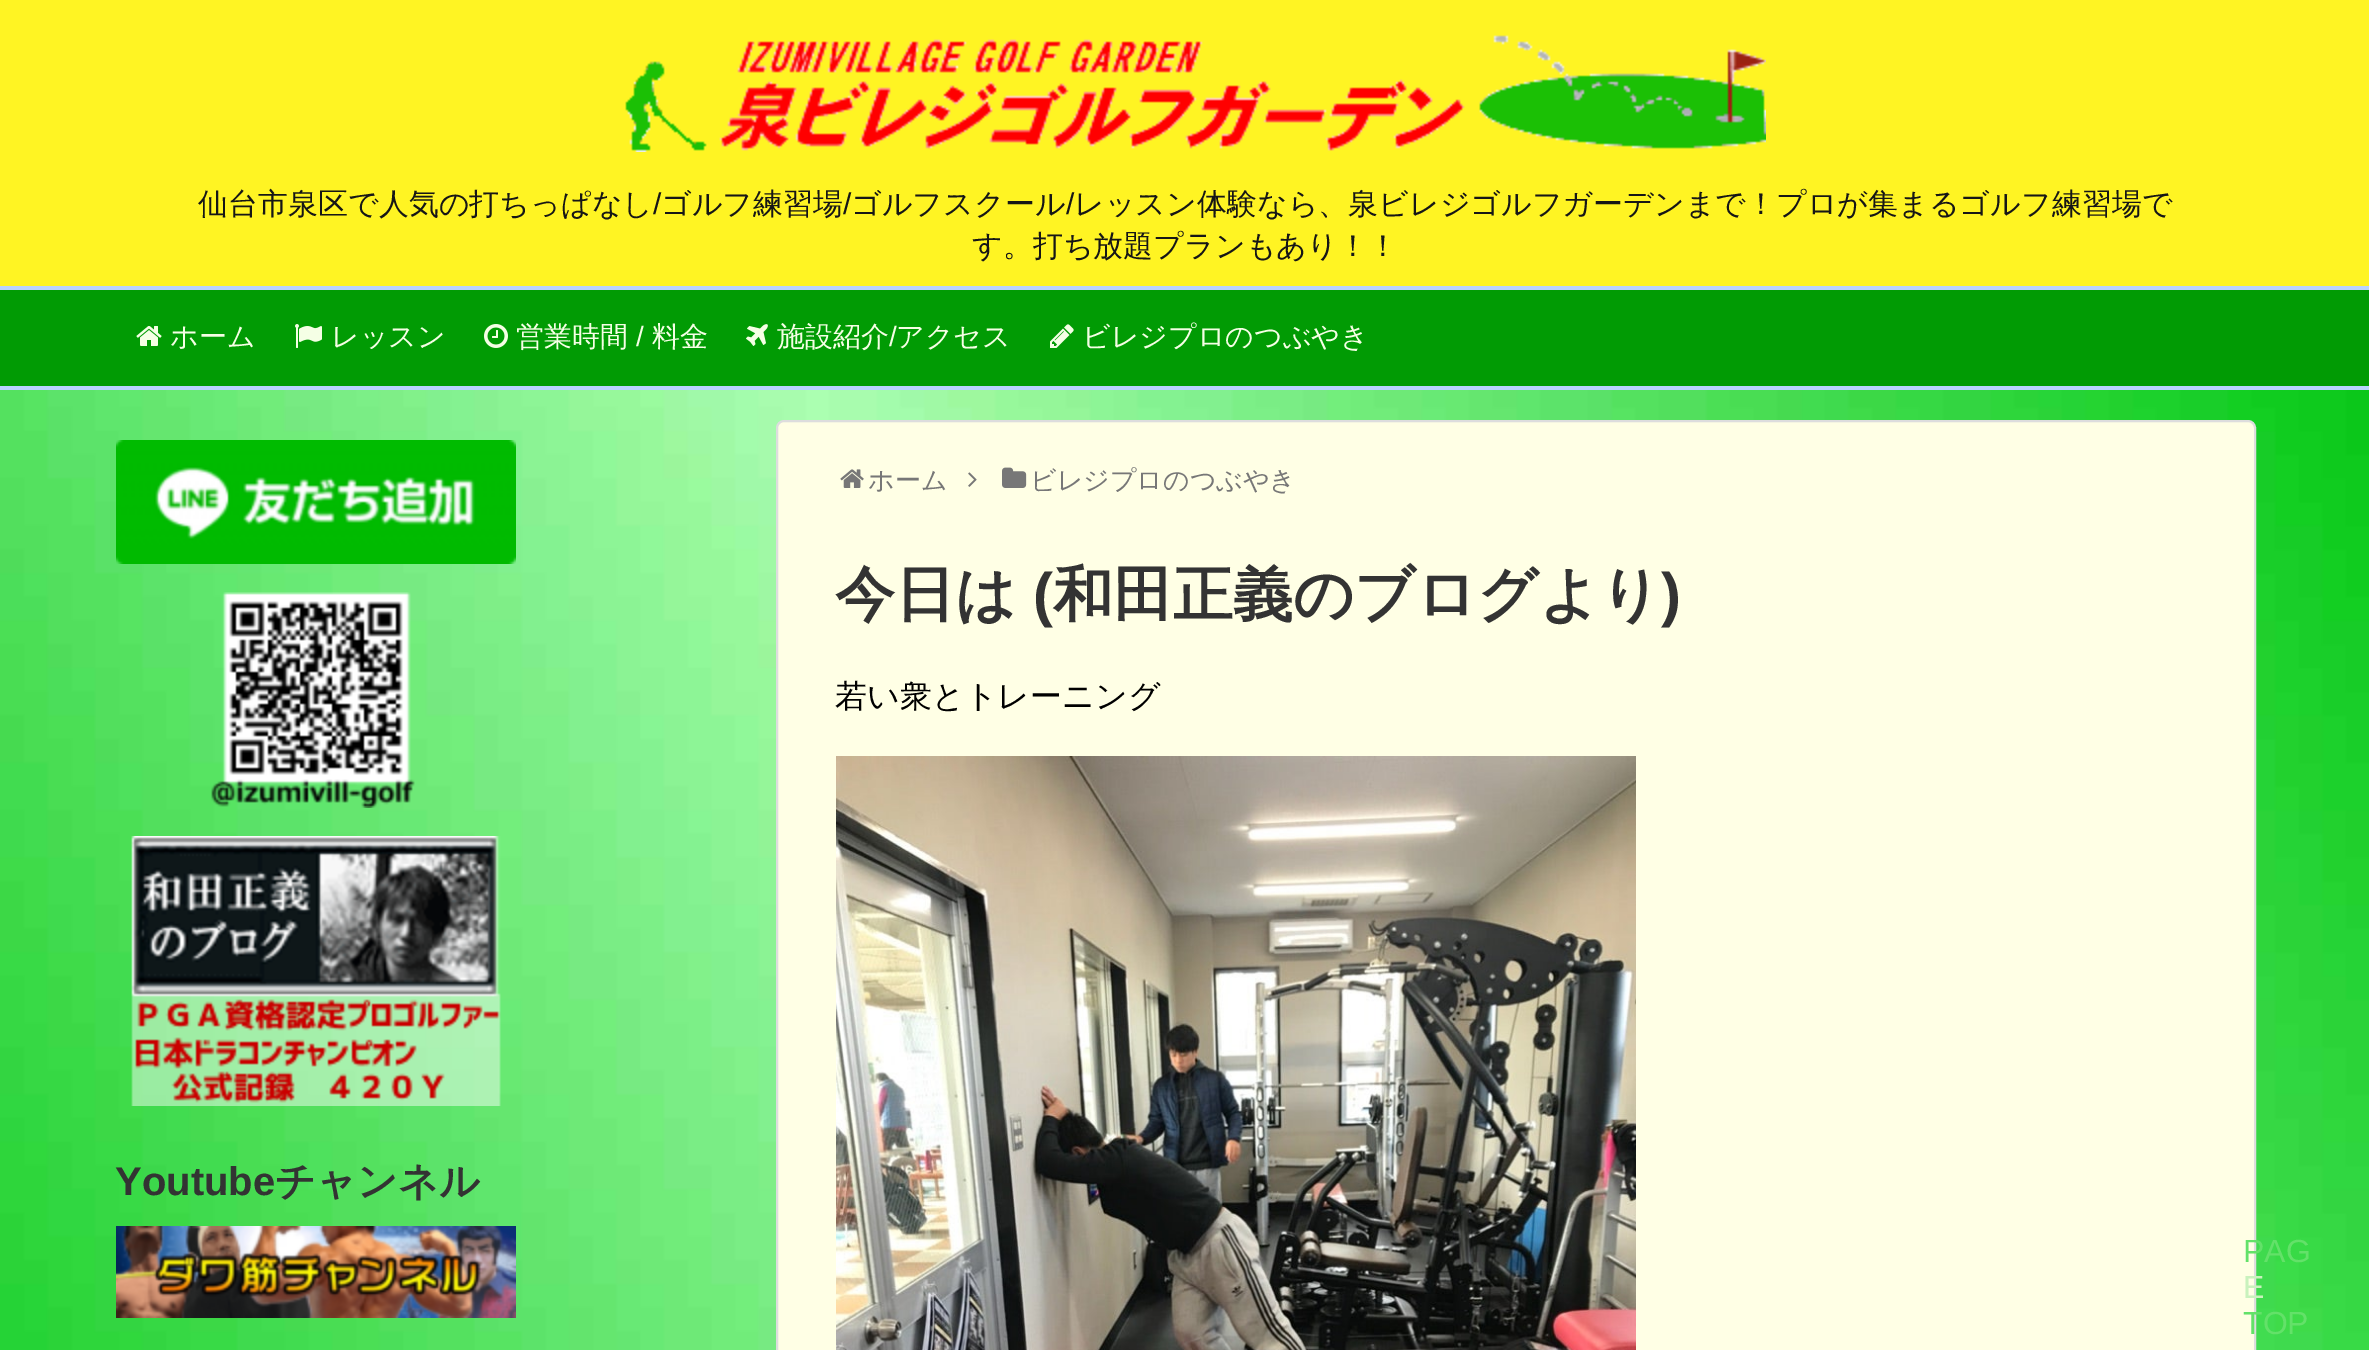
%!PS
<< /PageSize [2369 1350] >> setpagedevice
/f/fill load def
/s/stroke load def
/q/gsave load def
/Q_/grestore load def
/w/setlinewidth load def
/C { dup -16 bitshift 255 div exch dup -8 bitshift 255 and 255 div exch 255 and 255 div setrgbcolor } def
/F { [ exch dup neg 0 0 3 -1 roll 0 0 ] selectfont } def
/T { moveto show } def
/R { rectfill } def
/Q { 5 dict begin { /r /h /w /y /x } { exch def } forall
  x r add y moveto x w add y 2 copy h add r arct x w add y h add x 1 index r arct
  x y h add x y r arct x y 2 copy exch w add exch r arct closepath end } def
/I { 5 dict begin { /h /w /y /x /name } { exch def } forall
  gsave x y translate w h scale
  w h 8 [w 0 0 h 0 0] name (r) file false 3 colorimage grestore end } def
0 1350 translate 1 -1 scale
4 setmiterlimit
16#FFFFFF C
0 0 2369 1350 R
(1.rgb) 0 390 2369 960 I
16#FFF423 C
0 0 2369 286 R
(2.rgb) 625 35 1141 117 I
/WenQuanYiZenHei-Medium 30 F
16#161616 C
(仙台市泉区で人気の打ちっぱなし) 198 214 T
/LiberationSans-Regular 30 F
(/) 653 214 T
/WenQuanYiZenHei-Medium 30 F
(ゴルフ練習場) 661 214 T
/LiberationSans-Regular 30 F
(/) 843 214 T
/WenQuanYiZenHei-Medium 30 F
(ゴルフスクール) 851 214 T
/LiberationSans-Regular 30 F
(/) 1066 214 T
/WenQuanYiZenHei-Medium 30 F
(レッスン体験なら、泉ビレジゴルフガーデンまで！プロが集まるゴルフ練習場で) 1074 214 T
(す。打ち放題プランもあり！！) 972 256 T
16#019B04 C
0 290 2369 96 R
16#BAD3FF C
0 286 2369 4 R
0 386 2369 4 R
(3.rgb) 136 326 26 20 I
/WenQuanYiZenHei-Medium 28 F
16#F5FFE5 C
(ホーム) 170 346 T
(4.rgb) 295 324 27 24 I
(レッスン) 331 346 T
(5.rgb) 484 324 24 24 I
(営業時間) 516 346 T
/LiberationSans-Regular 28 F
(/) 636 346 T
/WenQuanYiZenHei-Medium 28 F
(料金) 652 346 T
(6.rgb) 746 324 22 22 I
(施設紹介) 777 346 T
/LiberationSans-Regular 28 F
(/) 889 346 T
/WenQuanYiZenHei-Medium 28 F
(アクセス) 896 346 T
(7.rgb) 1050 324 24 24 I
(ビレジプロのつぶやき) 1082 346 T
16#FFFFE5 C
777 421 1478 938 7 Q q f Q_
16#DDDDDD C
2 w
s
(8.rgb) 840 469 24 19 I
/WenQuanYiZenHei-Medium 26 F
16#777777 C
(ホーム) 868 489 T
(9.rgb) 968 472 9 15 I
(10.rgb) 1002 467 25 21 I
(ビレジプロのつぶやき) 1030 489 T
/WenQuanYiZenHei-Bold 60 F
16#333333 C
(今日は) 835 615 T
/LiberationSans-Bold 60 F
(\() 1033 615 T
/WenQuanYiZenHei-Bold 60 F
(和田正義のブログより) 1053 615 T
/LiberationSans-Bold 60 F
(\)) 1661 615 T
/WenQuanYiZenHei-Medium 32 F
16#000000 C
(若い衆とトレーニング) 835 707 T
(11.rgb) 836 756 800 594 I
(12.rgb) 116 440 400 124 I
(13.rgb) 211 592 204 216 I
(14.rgb) 131 836 370 270 I
/LiberationSans-Bold 40 F
16#333333 C
(Youtube) 115 1195 T
/WenQuanYiZenHei-Bold 40 F
(チャンネル) 275 1195 T
(15.rgb) 116 1226 400 92 I
/LiberationSans-Regular 32 F
16#63E169 C
(PAG) 2243 1262 T
16#C9F2BD C
(E) 2243 1298 T
16#63E169 C
(TOP) 2243 1334 T
showpage
